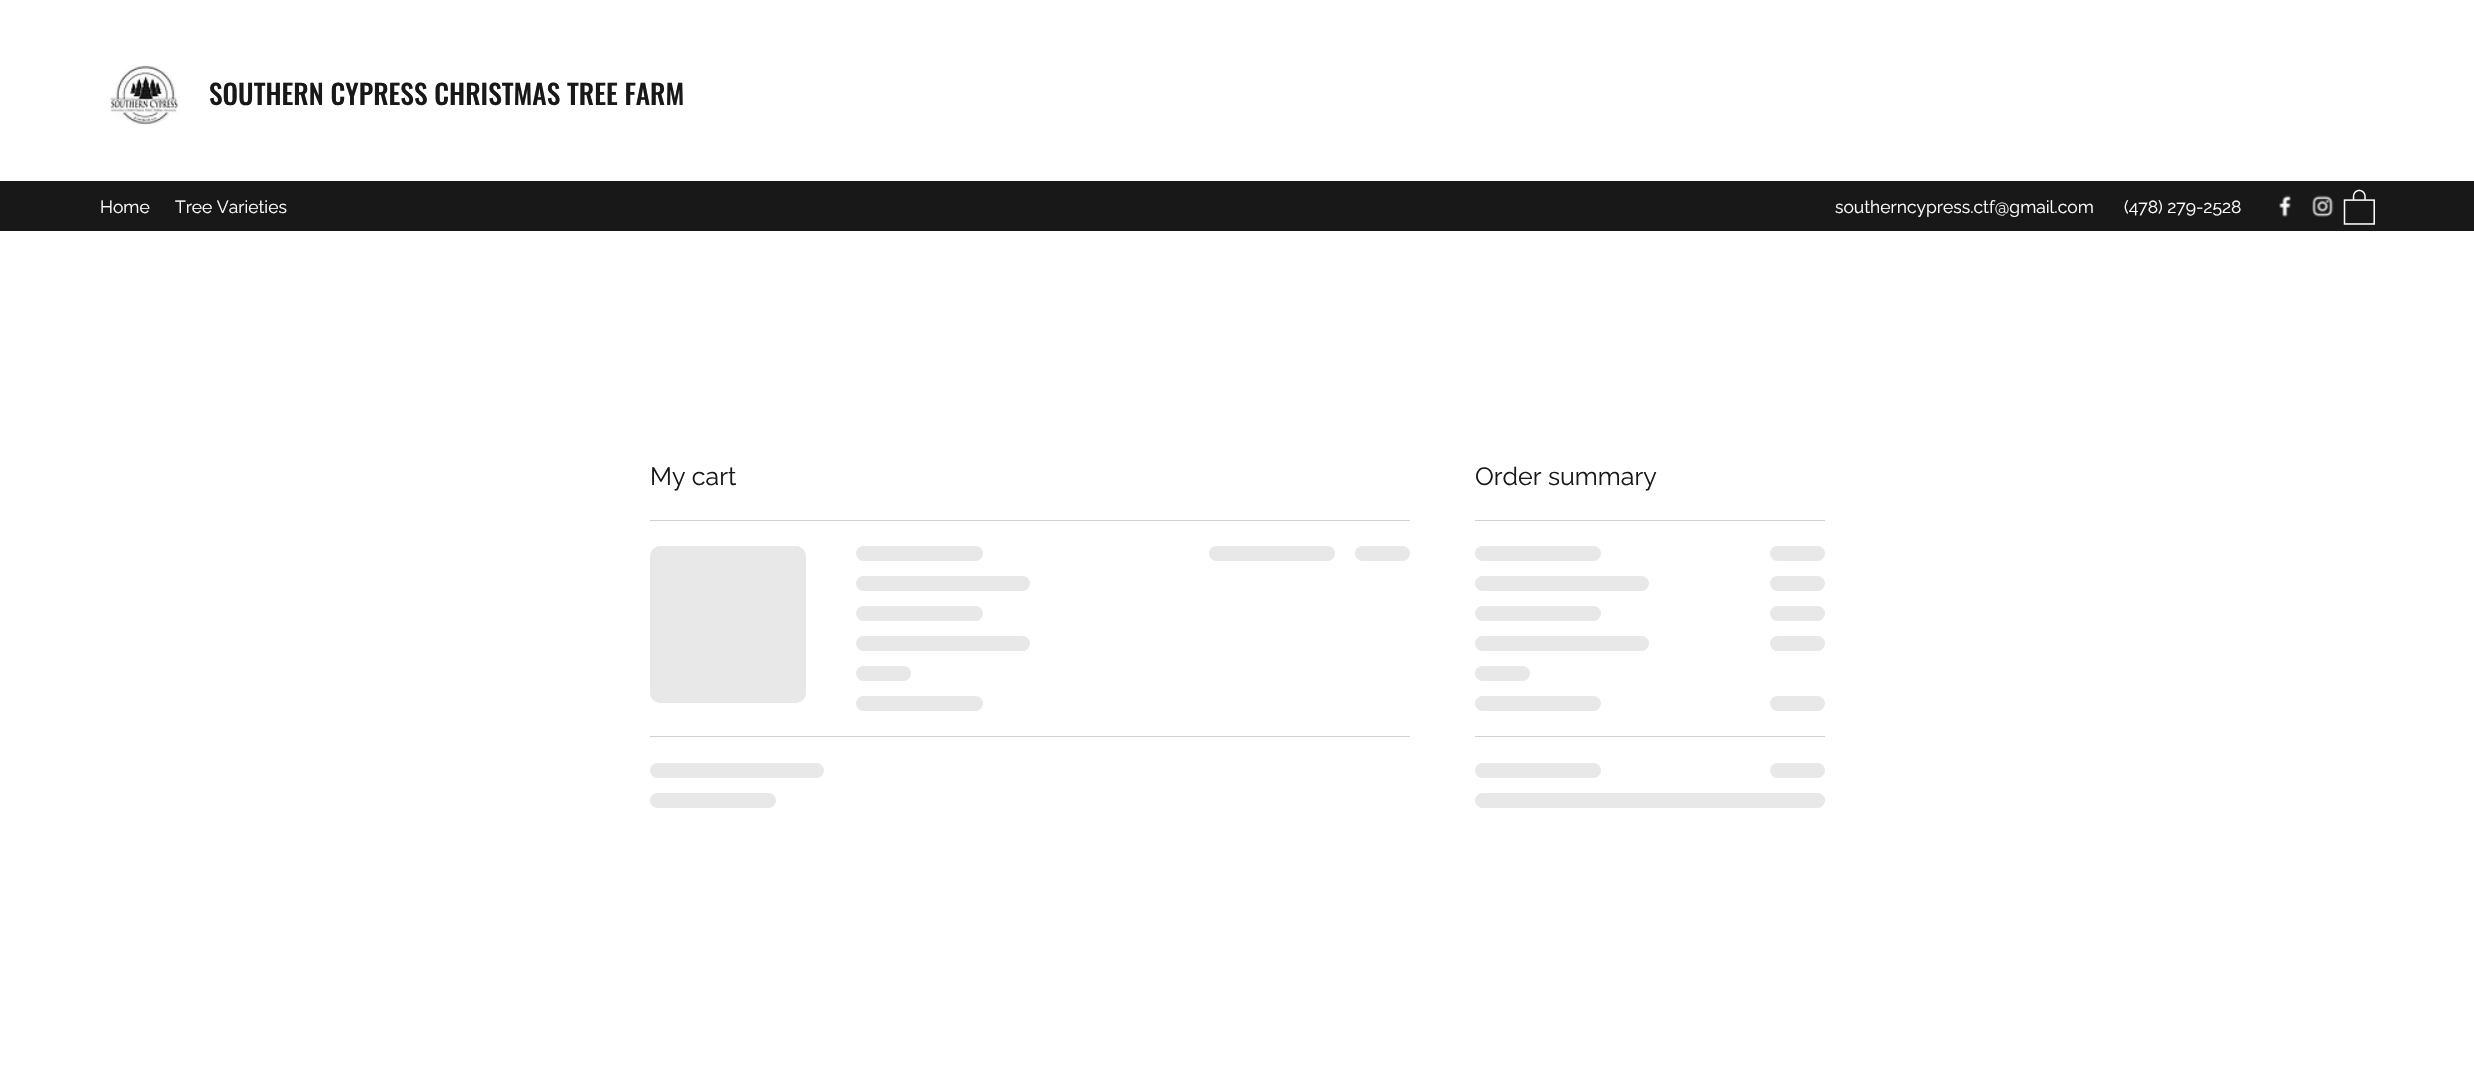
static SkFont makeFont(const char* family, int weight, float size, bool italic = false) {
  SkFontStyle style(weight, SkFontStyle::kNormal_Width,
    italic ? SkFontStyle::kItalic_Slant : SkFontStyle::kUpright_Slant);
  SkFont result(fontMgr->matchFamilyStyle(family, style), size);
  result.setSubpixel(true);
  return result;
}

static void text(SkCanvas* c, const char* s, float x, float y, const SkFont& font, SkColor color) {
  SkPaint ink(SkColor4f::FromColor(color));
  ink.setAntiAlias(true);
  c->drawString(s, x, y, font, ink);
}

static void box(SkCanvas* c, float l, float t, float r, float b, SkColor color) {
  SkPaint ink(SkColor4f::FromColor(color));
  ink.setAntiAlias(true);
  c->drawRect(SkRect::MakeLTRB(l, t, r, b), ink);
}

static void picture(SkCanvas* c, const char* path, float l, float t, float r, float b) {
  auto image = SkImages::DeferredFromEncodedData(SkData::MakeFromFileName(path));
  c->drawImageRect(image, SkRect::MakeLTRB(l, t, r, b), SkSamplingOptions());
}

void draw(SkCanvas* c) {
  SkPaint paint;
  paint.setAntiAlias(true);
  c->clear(0xffffffff);
  picture(c, "img_01.png", 110, 65, 180, 125);
  SkFont face1 = makeFont("Oswald", 500, 27.5f);
  text(c, "SOUTHERN CYPRESS CHRISTMAS TREE FARM", 209, 105, face1, 0xff181818);
  box(c, 0, 181, 2474, 231, 0xff181818);
  SkFont face2 = makeFont("Raleway", 400, 17.5f);
  text(c, "Home", 100, 213, face2, 0xffffffff);
  text(c, "Tree Varieties", 175, 213, face2, 0xffffffff);
  text(c, "southerncypress.ctf@gmail.com", 1835, 213, face2, 0xffffffff);
  text(c, "(478) 279-2528", 2124, 213, face2, 0xffffffff);
  picture(c, "img_02.png", 2279, 195, 2291, 217);
  picture(c, "img_03.png", 2312, 195, 2334, 217);
  picture(c, "img_04.png", 2343, 189, 2375, 225);
  box(c, 650, 520, 1410, 521, 0xffd1d1d1);
  SkFont face3 = makeFont("Raleway", 400, 25);
  text(c, "My cart", 650, 485, face3, 0xff181818);
  {
    const SkColor colors[] = {0xffe8e8e8, 0xffd1d1d1, 0xffe8e8e8};
    const float stops[] = {0.25f, 0.37f, 0.63f};
    const SkPoint ends[] = {{650, 624}, {1275, 624}};
    paint.setShader(SkGradientShader::MakeLinear(ends, colors, stops, 3, SkTileMode::kClamp));
    paint.setAlpha(255);
  }
  c->drawRoundRect(SkRect::MakeLTRB(650, 546, 806, 703), 10, 10, paint);
  {
    const SkColor colors[] = {0xffe8e8e8, 0xffd1d1d1, 0xffe8e8e8};
    const float stops[] = {0.25f, 0.37f, 0.63f};
    const SkPoint ends[] = {{856, 554}, {1361, 554}};
    paint.setShader(SkGradientShader::MakeLinear(ends, colors, stops, 3, SkTileMode::kClamp));
    paint.setAlpha(255);
  }
  c->drawRoundRect(SkRect::MakeLTRB(856, 546, 983, 561), 7.5f, 7.5f, paint);
  {
    const SkColor colors[] = {0xffe8e8e8, 0xffd1d1d1, 0xffe8e8e8};
    const float stops[] = {0.25f, 0.37f, 0.63f};
    const SkPoint ends[] = {{856, 584}, {1551, 584}};
    paint.setShader(SkGradientShader::MakeLinear(ends, colors, stops, 3, SkTileMode::kClamp));
    paint.setAlpha(255);
  }
  c->drawRoundRect(SkRect::MakeLTRB(856, 576, 1030, 591), 7.5f, 7.5f, paint);
  {
    const SkColor colors[] = {0xffe8e8e8, 0xffd1d1d1, 0xffe8e8e8};
    const float stops[] = {0.25f, 0.37f, 0.63f};
    const SkPoint ends[] = {{856, 614}, {1361, 614}};
    paint.setShader(SkGradientShader::MakeLinear(ends, colors, stops, 3, SkTileMode::kClamp));
    paint.setAlpha(255);
  }
  c->drawRoundRect(SkRect::MakeLTRB(856, 606, 983, 621), 7.5f, 7.5f, paint);
  {
    const SkColor colors[] = {0xffe8e8e8, 0xffd1d1d1, 0xffe8e8e8};
    const float stops[] = {0.25f, 0.37f, 0.63f};
    const SkPoint ends[] = {{856, 644}, {1551, 644}};
    paint.setShader(SkGradientShader::MakeLinear(ends, colors, stops, 3, SkTileMode::kClamp));
    paint.setAlpha(255);
  }
  c->drawRoundRect(SkRect::MakeLTRB(856, 636, 1030, 651), 7.5f, 7.5f, paint);
  {
    const SkColor colors[] = {0xffe8e8e8, 0xffd1d1d1, 0xffe8e8e8};
    const float stops[] = {0.25f, 0.37f, 0.63f};
    const SkPoint ends[] = {{856, 674}, {1076, 674}};
    paint.setShader(SkGradientShader::MakeLinear(ends, colors, stops, 3, SkTileMode::kClamp));
    paint.setAlpha(255);
  }
  c->drawRoundRect(SkRect::MakeLTRB(856, 666, 911, 681), 7.5f, 7.5f, paint);
  {
    const SkColor colors[] = {0xffe8e8e8, 0xffd1d1d1, 0xffe8e8e8};
    const float stops[] = {0.25f, 0.37f, 0.63f};
    const SkPoint ends[] = {{856, 704}, {1361, 704}};
    paint.setShader(SkGradientShader::MakeLinear(ends, colors, stops, 3, SkTileMode::kClamp));
    paint.setAlpha(255);
  }
  c->drawRoundRect(SkRect::MakeLTRB(856, 696, 983, 711), 7.5f, 7.5f, paint);
  {
    const SkColor colors[] = {0xffe8e8e8, 0xffd1d1d1, 0xffe8e8e8};
    const float stops[] = {0.25f, 0.37f, 0.63f};
    const SkPoint ends[] = {{1209, 554}, {1714, 554}};
    paint.setShader(SkGradientShader::MakeLinear(ends, colors, stops, 3, SkTileMode::kClamp));
    paint.setAlpha(255);
  }
  c->drawRoundRect(SkRect::MakeLTRB(1209, 546, 1335, 561), 7.5f, 7.5f, paint);
  {
    const SkColor colors[] = {0xffe8e8e8, 0xffd1d1d1, 0xffe8e8e8};
    const float stops[] = {0.25f, 0.37f, 0.63f};
    const SkPoint ends[] = {{1355, 554}, {1575, 554}};
    paint.setShader(SkGradientShader::MakeLinear(ends, colors, stops, 3, SkTileMode::kClamp));
    paint.setAlpha(255);
  }
  c->drawRoundRect(SkRect::MakeLTRB(1355, 546, 1410, 561), 7.5f, 7.5f, paint);
  box(c, 650, 736, 1410, 737, 0xffd1d1d1);
  {
    const SkColor colors[] = {0xffe8e8e8, 0xffd1d1d1, 0xffe8e8e8};
    const float stops[] = {0.25f, 0.37f, 0.63f};
    const SkPoint ends[] = {{650, 770}, {1345, 770}};
    paint.setShader(SkGradientShader::MakeLinear(ends, colors, stops, 3, SkTileMode::kClamp));
    paint.setAlpha(255);
  }
  c->drawRoundRect(SkRect::MakeLTRB(650, 763, 824, 778), 7.5f, 7.5f, paint);
  {
    const SkColor colors[] = {0xffe8e8e8, 0xffd1d1d1, 0xffe8e8e8};
    const float stops[] = {0.25f, 0.37f, 0.63f};
    const SkPoint ends[] = {{650, 800}, {1155, 800}};
    paint.setShader(SkGradientShader::MakeLinear(ends, colors, stops, 3, SkTileMode::kClamp));
    paint.setAlpha(255);
  }
  c->drawRoundRect(SkRect::MakeLTRB(650, 793, 776, 808), 7.5f, 7.5f, paint);
  box(c, 1475, 520, 1825, 521, 0xffd1d1d1);
  text(c, "Order summary", 1475, 485, face3, 0xff181818);
  {
    const SkColor colors[] = {0xffe8e8e8, 0xffd1d1d1, 0xffe8e8e8};
    const float stops[] = {0.25f, 0.37f, 0.63f};
    const SkPoint ends[] = {{1475, 554}, {1980, 554}};
    paint.setShader(SkGradientShader::MakeLinear(ends, colors, stops, 3, SkTileMode::kClamp));
    paint.setAlpha(255);
  }
  c->drawRoundRect(SkRect::MakeLTRB(1475, 546, 1601, 561), 7.5f, 7.5f, paint);
  {
    const SkColor colors[] = {0xffe8e8e8, 0xffd1d1d1, 0xffe8e8e8};
    const float stops[] = {0.25f, 0.37f, 0.63f};
    const SkPoint ends[] = {{1770, 554}, {1990, 554}};
    paint.setShader(SkGradientShader::MakeLinear(ends, colors, stops, 3, SkTileMode::kClamp));
    paint.setAlpha(255);
  }
  c->drawRoundRect(SkRect::MakeLTRB(1770, 546, 1825, 561), 7.5f, 7.5f, paint);
  {
    const SkColor colors[] = {0xffe8e8e8, 0xffd1d1d1, 0xffe8e8e8};
    const float stops[] = {0.25f, 0.37f, 0.63f};
    const SkPoint ends[] = {{1475, 584}, {2170, 584}};
    paint.setShader(SkGradientShader::MakeLinear(ends, colors, stops, 3, SkTileMode::kClamp));
    paint.setAlpha(255);
  }
  c->drawRoundRect(SkRect::MakeLTRB(1475, 576, 1649, 591), 7.5f, 7.5f, paint);
  {
    const SkColor colors[] = {0xffe8e8e8, 0xffd1d1d1, 0xffe8e8e8};
    const float stops[] = {0.25f, 0.37f, 0.63f};
    const SkPoint ends[] = {{1770, 584}, {1990, 584}};
    paint.setShader(SkGradientShader::MakeLinear(ends, colors, stops, 3, SkTileMode::kClamp));
    paint.setAlpha(255);
  }
  c->drawRoundRect(SkRect::MakeLTRB(1770, 576, 1825, 591), 7.5f, 7.5f, paint);
  {
    const SkColor colors[] = {0xffe8e8e8, 0xffd1d1d1, 0xffe8e8e8};
    const float stops[] = {0.25f, 0.37f, 0.63f};
    const SkPoint ends[] = {{1475, 614}, {1980, 614}};
    paint.setShader(SkGradientShader::MakeLinear(ends, colors, stops, 3, SkTileMode::kClamp));
    paint.setAlpha(255);
  }
  c->drawRoundRect(SkRect::MakeLTRB(1475, 606, 1601, 621), 7.5f, 7.5f, paint);
  {
    const SkColor colors[] = {0xffe8e8e8, 0xffd1d1d1, 0xffe8e8e8};
    const float stops[] = {0.25f, 0.37f, 0.63f};
    const SkPoint ends[] = {{1770, 614}, {1990, 614}};
    paint.setShader(SkGradientShader::MakeLinear(ends, colors, stops, 3, SkTileMode::kClamp));
    paint.setAlpha(255);
  }
  c->drawRoundRect(SkRect::MakeLTRB(1770, 606, 1825, 621), 7.5f, 7.5f, paint);
  {
    const SkColor colors[] = {0xffe8e8e8, 0xffd1d1d1, 0xffe8e8e8};
    const float stops[] = {0.25f, 0.37f, 0.63f};
    const SkPoint ends[] = {{1475, 644}, {2170, 644}};
    paint.setShader(SkGradientShader::MakeLinear(ends, colors, stops, 3, SkTileMode::kClamp));
    paint.setAlpha(255);
  }
  c->drawRoundRect(SkRect::MakeLTRB(1475, 636, 1649, 651), 7.5f, 7.5f, paint);
  {
    const SkColor colors[] = {0xffe8e8e8, 0xffd1d1d1, 0xffe8e8e8};
    const float stops[] = {0.25f, 0.37f, 0.63f};
    const SkPoint ends[] = {{1770, 644}, {1990, 644}};
    paint.setShader(SkGradientShader::MakeLinear(ends, colors, stops, 3, SkTileMode::kClamp));
    paint.setAlpha(255);
  }
  c->drawRoundRect(SkRect::MakeLTRB(1770, 636, 1825, 651), 7.5f, 7.5f, paint);
  {
    const SkColor colors[] = {0xffe8e8e8, 0xffd1d1d1, 0xffe8e8e8};
    const float stops[] = {0.25f, 0.37f, 0.63f};
    const SkPoint ends[] = {{1475, 674}, {1695, 674}};
    paint.setShader(SkGradientShader::MakeLinear(ends, colors, stops, 3, SkTileMode::kClamp));
    paint.setAlpha(255);
  }
  c->drawRoundRect(SkRect::MakeLTRB(1475, 666, 1530, 681), 7.5f, 7.5f, paint);
  {
    const SkColor colors[] = {0xffe8e8e8, 0xffd1d1d1, 0xffe8e8e8};
    const float stops[] = {0.25f, 0.37f, 0.63f};
    const SkPoint ends[] = {{1475, 704}, {1980, 704}};
    paint.setShader(SkGradientShader::MakeLinear(ends, colors, stops, 3, SkTileMode::kClamp));
    paint.setAlpha(255);
  }
  c->drawRoundRect(SkRect::MakeLTRB(1475, 696, 1601, 711), 7.5f, 7.5f, paint);
  {
    const SkColor colors[] = {0xffe8e8e8, 0xffd1d1d1, 0xffe8e8e8};
    const float stops[] = {0.25f, 0.37f, 0.63f};
    const SkPoint ends[] = {{1770, 704}, {1990, 704}};
    paint.setShader(SkGradientShader::MakeLinear(ends, colors, stops, 3, SkTileMode::kClamp));
    paint.setAlpha(255);
  }
  c->drawRoundRect(SkRect::MakeLTRB(1770, 696, 1825, 711), 7.5f, 7.5f, paint);
  box(c, 1475, 736, 1825, 737, 0xffd1d1d1);
  {
    const SkColor colors[] = {0xffe8e8e8, 0xffd1d1d1, 0xffe8e8e8};
    const float stops[] = {0.25f, 0.37f, 0.63f};
    const SkPoint ends[] = {{1475, 770}, {1980, 770}};
    paint.setShader(SkGradientShader::MakeLinear(ends, colors, stops, 3, SkTileMode::kClamp));
    paint.setAlpha(255);
  }
  c->drawRoundRect(SkRect::MakeLTRB(1475, 763, 1601, 778), 7.5f, 7.5f, paint);
  {
    const SkColor colors[] = {0xffe8e8e8, 0xffd1d1d1, 0xffe8e8e8};
    const float stops[] = {0.25f, 0.37f, 0.63f};
    const SkPoint ends[] = {{1770, 770}, {1990, 770}};
    paint.setShader(SkGradientShader::MakeLinear(ends, colors, stops, 3, SkTileMode::kClamp));
    paint.setAlpha(255);
  }
  c->drawRoundRect(SkRect::MakeLTRB(1770, 763, 1825, 778), 7.5f, 7.5f, paint);
  {
    const SkColor colors[] = {0xffe8e8e8, 0xffd1d1d1, 0xffe8e8e8};
    const float stops[] = {0.25f, 0.37f, 0.63f};
    const SkPoint ends[] = {{1475, 800}, {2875, 800}};
    paint.setShader(SkGradientShader::MakeLinear(ends, colors, stops, 3, SkTileMode::kClamp));
    paint.setAlpha(255);
  }
  c->drawRoundRect(SkRect::MakeLTRB(1475, 793, 1825, 808), 7.5f, 7.5f, paint);
}
